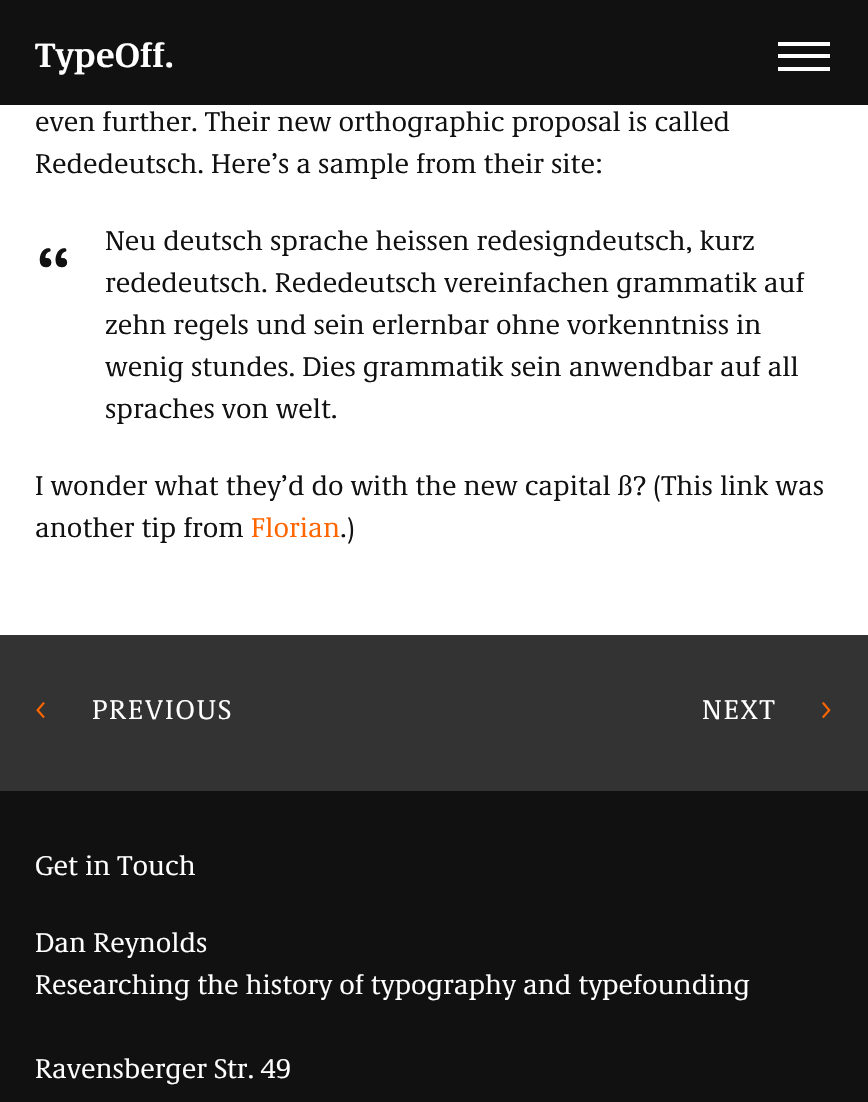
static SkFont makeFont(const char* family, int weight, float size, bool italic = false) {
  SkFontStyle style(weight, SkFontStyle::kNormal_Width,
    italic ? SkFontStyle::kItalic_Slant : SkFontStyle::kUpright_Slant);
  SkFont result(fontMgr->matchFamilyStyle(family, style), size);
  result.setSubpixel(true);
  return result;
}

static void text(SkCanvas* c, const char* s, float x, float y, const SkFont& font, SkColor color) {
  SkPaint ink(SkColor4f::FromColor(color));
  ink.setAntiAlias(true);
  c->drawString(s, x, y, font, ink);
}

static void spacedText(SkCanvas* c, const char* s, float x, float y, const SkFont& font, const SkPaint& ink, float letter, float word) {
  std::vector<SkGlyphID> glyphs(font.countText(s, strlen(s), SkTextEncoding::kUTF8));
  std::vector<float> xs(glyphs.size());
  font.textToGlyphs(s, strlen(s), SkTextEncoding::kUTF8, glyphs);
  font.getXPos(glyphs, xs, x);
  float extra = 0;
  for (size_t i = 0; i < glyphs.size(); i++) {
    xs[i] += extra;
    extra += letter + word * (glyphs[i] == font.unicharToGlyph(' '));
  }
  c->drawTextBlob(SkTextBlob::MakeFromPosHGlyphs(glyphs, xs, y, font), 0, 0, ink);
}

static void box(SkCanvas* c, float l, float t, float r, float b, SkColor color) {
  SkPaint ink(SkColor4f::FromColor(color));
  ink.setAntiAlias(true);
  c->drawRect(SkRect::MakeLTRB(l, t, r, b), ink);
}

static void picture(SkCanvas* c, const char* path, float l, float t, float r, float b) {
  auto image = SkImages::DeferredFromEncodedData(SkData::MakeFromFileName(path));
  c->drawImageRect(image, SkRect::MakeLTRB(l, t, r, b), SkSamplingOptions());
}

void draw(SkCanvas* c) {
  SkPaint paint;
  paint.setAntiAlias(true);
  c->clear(0xffffffff);
  box(c, 0, 0, 868, 105, 0xff111111);
  SkFont face1 = makeFont("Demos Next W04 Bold", 700, 35);
  text(c, "TypeOff.", 35, 67, face1, 0xffffffff);
  paint.setColor(0xffffffff);
  c->drawPath(SkPathBuilder().moveTo(778, 42).lineTo(830, 42).lineTo(830, 46).lineTo(778, 46).close().moveTo(778, 54).lineTo(830, 54).lineTo(830, 58).lineTo(778, 58).close().moveTo(778, 67).lineTo(830, 67).lineTo(830, 71).lineTo(778, 71).close().detach(), paint);
  SkFont face2 = makeFont("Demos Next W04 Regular", 400, 28);
  text(c, "even further. Their new orthographic proposal is called", 35, 131, face2, 0xff111111);
  text(c, "Rededeutsch. Here’s a sample from their site:", 35, 173, face2, 0xff111111);
  SkFont face3 = makeFont("Demos Next W04 Regular", 400, 84);
  text(c, "“", 35, 308, face3, 0xff111111);
  text(c, "Neu deutsch sprache heissen redesigndeutsch, kurz", 105, 250, face2, 0xff111111);
  text(c, "rededeutsch. Rededeutsch vereinfachen grammatik auf", 105, 292, face2, 0xff111111);
  text(c, "zehn regels und sein erlernbar ohne vorkenntniss in", 105, 334, face2, 0xff111111);
  text(c, "wenig stundes. Dies grammatik sein anwendbar auf all", 105, 376, face2, 0xff111111);
  text(c, "spraches von welt.", 105, 418, face2, 0xff111111);
  text(c, "I wonder what they’d do with the new capital ß? (This link was", 35, 495, face2, 0xff111111);
  text(c, "another tip from", 35, 537, face2, 0xff111111);
  text(c, "Florian", 251, 537, face2, 0xffff6600);
  text(c, ".)", 340, 537, face2, 0xff111111);
  box(c, 0, 635, 868, 791, 0xff333333);
  picture(c, "img_01.png", 36, 702, 45, 719);
  spacedText(c, "PREVIOUS", 92, 719, face2, paint, 2, 0);
  spacedText(c, "NEXT", 702, 719, face2, paint, 2, 0);
  picture(c, "img_02.png", 822, 702, 831, 719);
  box(c, 0, 791, 868, 1102, 0xff111111);
  text(c, "Get in Touch", 35, 875, face2, 0xffffffff);
  text(c, "Dan Reynolds", 35, 952, face2, 0xffffffff);
  text(c, "Researching the history of typography and typefounding", 35, 994, face2, 0xffffffff);
  text(c, "Ravensberger Str. 49", 35, 1078, face2, 0xffffffff);
}
